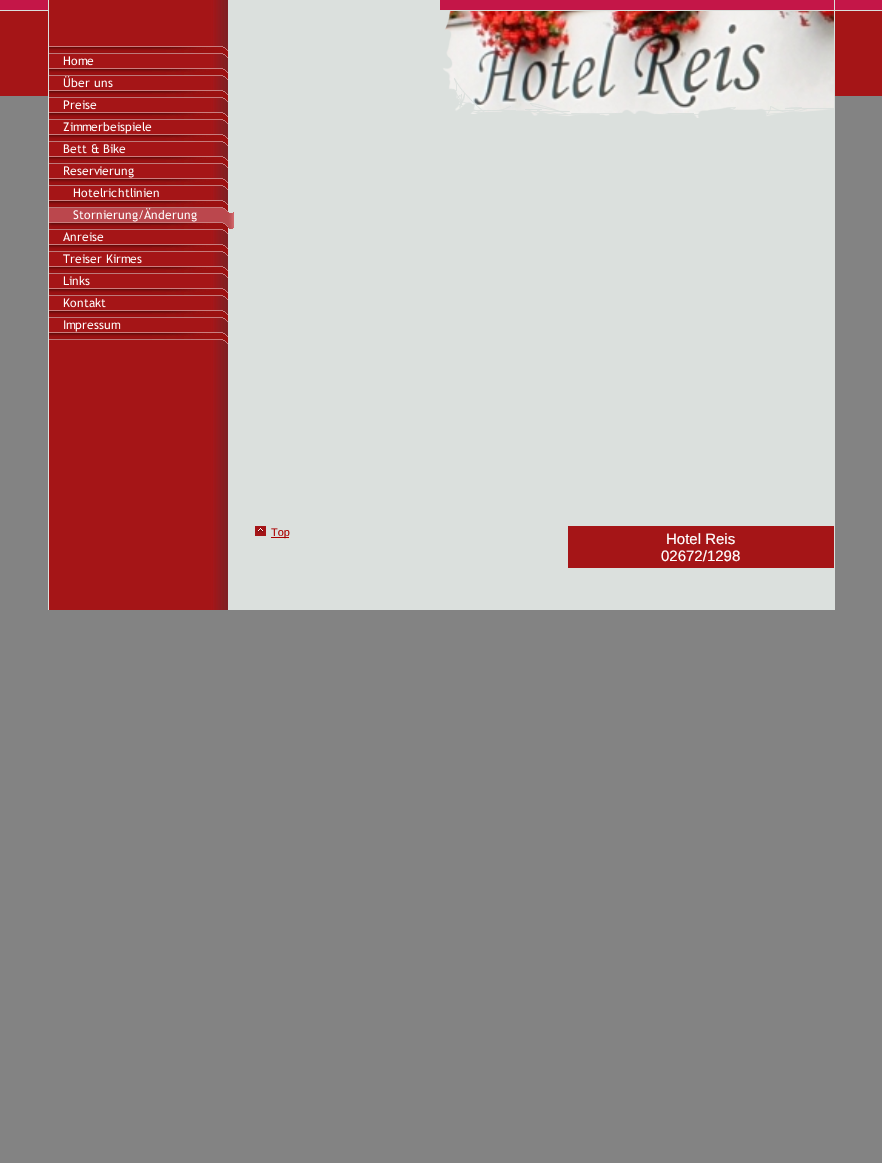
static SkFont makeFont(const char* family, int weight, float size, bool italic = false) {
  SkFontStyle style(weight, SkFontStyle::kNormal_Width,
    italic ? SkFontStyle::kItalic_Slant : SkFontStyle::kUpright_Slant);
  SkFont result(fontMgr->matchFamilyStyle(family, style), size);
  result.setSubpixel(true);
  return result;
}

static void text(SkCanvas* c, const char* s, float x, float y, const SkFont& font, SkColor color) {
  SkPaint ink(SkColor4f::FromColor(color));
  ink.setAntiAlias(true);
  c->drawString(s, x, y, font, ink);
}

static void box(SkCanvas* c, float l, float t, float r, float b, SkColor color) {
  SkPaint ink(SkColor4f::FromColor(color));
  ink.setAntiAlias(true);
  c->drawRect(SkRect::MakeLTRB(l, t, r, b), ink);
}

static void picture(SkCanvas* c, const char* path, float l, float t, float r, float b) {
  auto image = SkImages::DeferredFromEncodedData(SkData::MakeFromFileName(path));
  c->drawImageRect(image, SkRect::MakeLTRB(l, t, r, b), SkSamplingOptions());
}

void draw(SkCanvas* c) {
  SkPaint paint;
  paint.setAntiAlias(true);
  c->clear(0xff838383);
  picture(c, "img_01.png", 0, 0, 882, 96);
  box(c, 48, 0, 835, 610, 0xffdbe0dd);
  picture(c, "img_02.png", 49, 0, 228, 526);
  picture(c, "img_03.png", 49, 46, 228, 53);
  picture(c, "img_04.png", 49, 53, 228, 75);
  picture(c, "img_05.png", 49, 75, 228, 97);
  picture(c, "img_06.png", 49, 97, 228, 119);
  picture(c, "img_07.png", 49, 119, 228, 141);
  picture(c, "img_08.png", 49, 141, 228, 163);
  picture(c, "img_09.png", 49, 163, 228, 185);
  picture(c, "img_10.png", 49, 185, 228, 207);
  picture(c, "img_11.png", 49, 207, 234, 229);
  picture(c, "img_12.png", 49, 229, 228, 251);
  picture(c, "img_13.png", 49, 251, 228, 273);
  picture(c, "img_14.png", 49, 273, 228, 295);
  picture(c, "img_15.png", 49, 295, 228, 317);
  picture(c, "img_16.png", 49, 317, 228, 339);
  picture(c, "img_17.png", 49, 339, 228, 344);
  picture(c, "img_18.png", 440, 0, 834, 11);
  picture(c, "img_19.png", 440, 11, 834, 118);
  picture(c, "img_20.png", 49, 526, 228, 610);
  picture(c, "img_21.png", 255, 526, 266, 536);
  box(c, 271, 537, 289, 538, 0xffaa0000);
  SkFont face1 = makeFont("Liberation Sans", 400, 11);
  text(c, "Top", 271, 536, face1, 0xffaa0000);
  box(c, 568, 526, 834, 568, 0xffa51517);
  SkFont face2 = makeFont("Liberation Sans", 400, 15);
  text(c, "Hotel Reis", 666, 544, face2, 0xffffffff);
  text(c, "02672/1298", 661, 561, face2, 0xffffffff);
}
